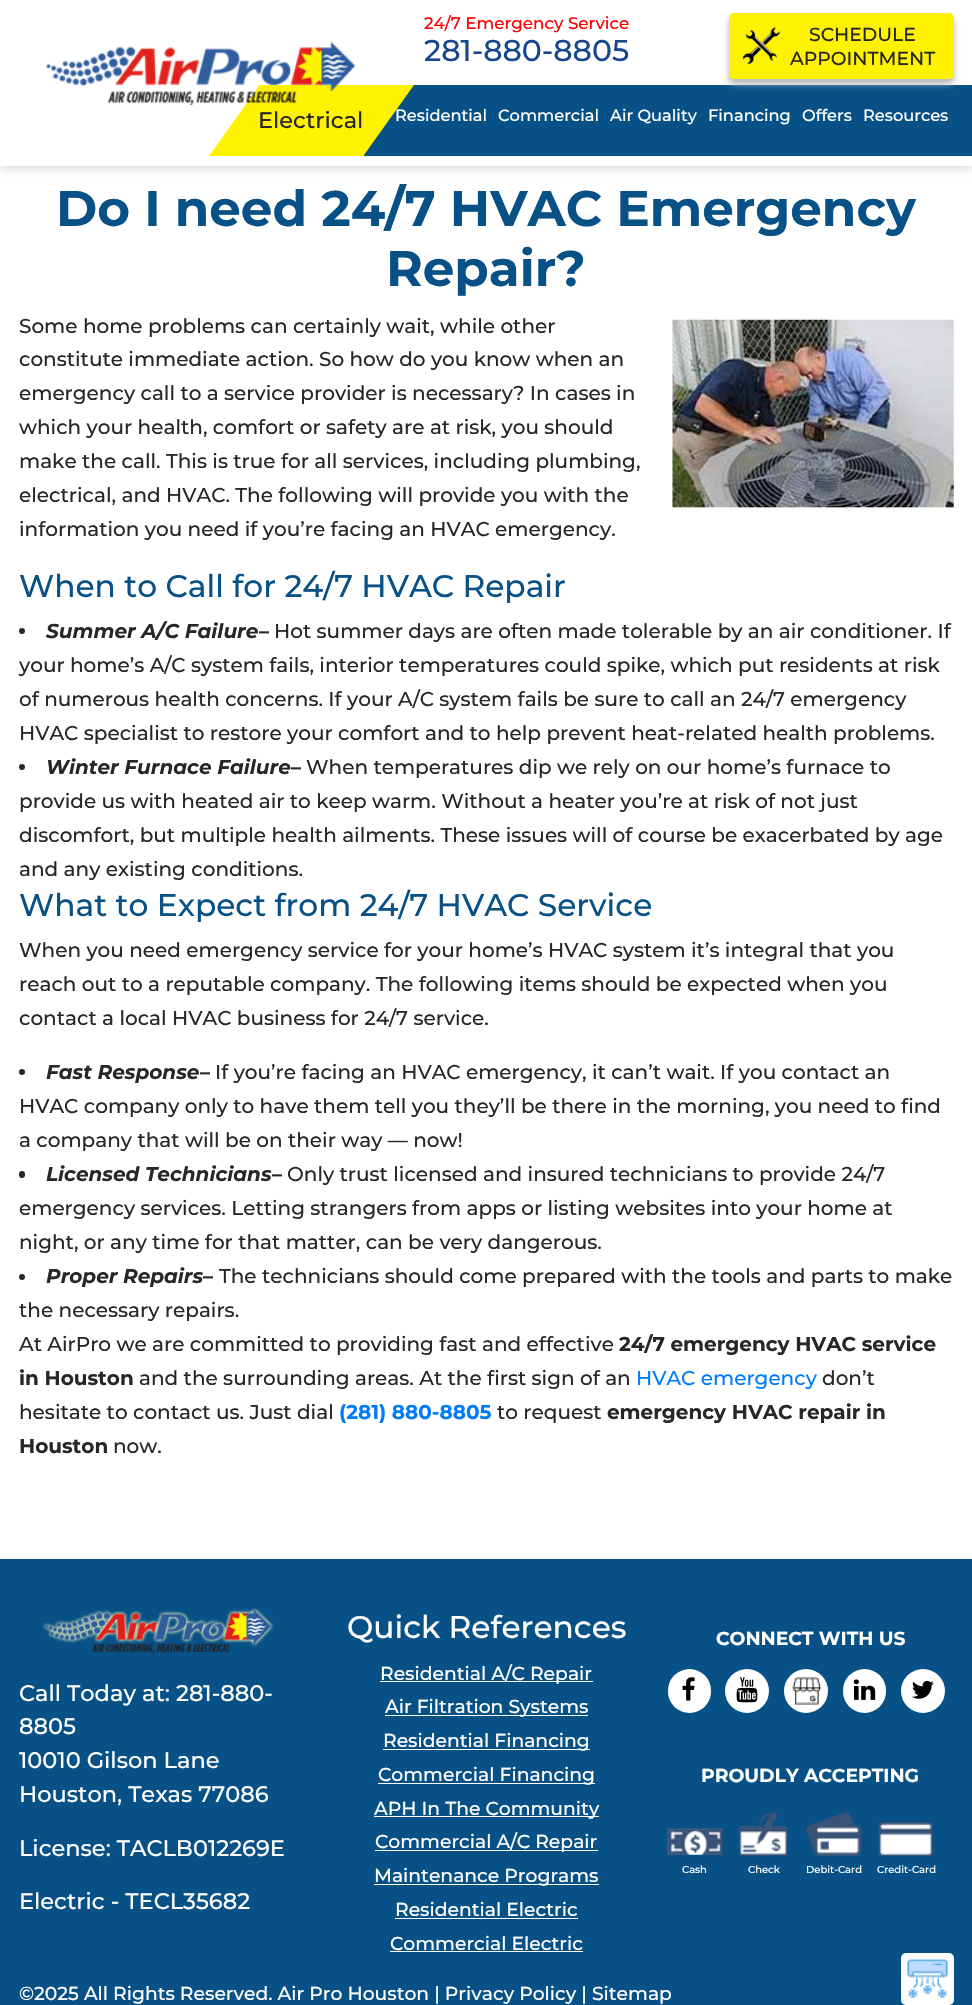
static SkFont makeFont(const char* family, int weight, float size, bool italic = false) {
  SkFontStyle style(weight, SkFontStyle::kNormal_Width,
    italic ? SkFontStyle::kItalic_Slant : SkFontStyle::kUpright_Slant);
  SkFont result(fontMgr->matchFamilyStyle(family, style), size);
  result.setSubpixel(true);
  return result;
}

static void text(SkCanvas* c, const char* s, float x, float y, const SkFont& font, SkColor color) {
  SkPaint ink(SkColor4f::FromColor(color));
  ink.setAntiAlias(true);
  c->drawString(s, x, y, font, ink);
}

static void box(SkCanvas* c, float l, float t, float r, float b, SkColor color) {
  SkPaint ink(SkColor4f::FromColor(color));
  ink.setAntiAlias(true);
  c->drawRect(SkRect::MakeLTRB(l, t, r, b), ink);
}

static void roundBox(SkCanvas* c, float l, float t, float r, float b, float radius, SkColor color) {
  SkPaint ink(SkColor4f::FromColor(color));
  ink.setAntiAlias(true);
  c->drawRoundRect(SkRect::MakeLTRB(l, t, r, b), radius, radius, ink);
}

static void picture(SkCanvas* c, const char* path, float l, float t, float r, float b) {
  auto image = SkImages::DeferredFromEncodedData(SkData::MakeFromFileName(path));
  c->drawImageRect(image, SkRect::MakeLTRB(l, t, r, b), SkSamplingOptions());
}

void draw(SkCanvas* c) {
  SkPaint paint;
  paint.setAntiAlias(true);
  c->clear(0xffffffff);
  paint.setColor(0xffc6c6c6);
  paint.setMaskFilter(SkMaskFilter::MakeBlur(kNormal_SkBlurStyle, 6));
  c->drawRect(SkRect::MakeLTRB(0, 0, 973, 166), paint);
  paint.setMaskFilter(nullptr);
  box(c, 0, 0, 972, 166, 0xffffffff);
  SkFont face1 = makeFont("Montserrat", 500, 16.75f);
  text(c, "24/7 Emergency Service", 424, 29, face1, 0xffff0000);
  SkFont face2 = makeFont("Montserrat", 500, 30);
  text(c, "281-880-8805", 424, 61, face2, 0xff16478e);
  paint.setColor(0xff085186);
  c->drawPath(SkPathBuilder().moveTo(271, 85).lineTo(220, 156).lineTo(954, 156).lineTo(954, 85).close().detach(), paint);
  c->drawPath(SkPathBuilder().moveTo(520, 85).lineTo(972, 85).lineTo(972, 156).lineTo(486, 156).close().detach(), paint);
  paint.setColor(0xffb6b6b6);
  paint.setMaskFilter(SkMaskFilter::MakeBlur(kNormal_SkBlurStyle, 3));
  c->drawRoundRect(SkRect::MakeLTRB(729, 18, 954, 84), 5, 5, paint);
  paint.setMaskFilter(nullptr);
  roundBox(c, 729, 13, 954, 79, 5, 0xfffff200);
  picture(c, "img_01.png", 742, 27, 780, 64);
  paint.setStyle(SkPaint::kStroke_Style);
  paint.setStrokeWidth(1);
  paint.setColor(0xfffff200);
  c->drawRoundRect(SkRect::MakeLTRB(729.5f, 13.5f, 953.5f, 78.5f), 4.5f, 4.5f, paint);
  SkFont face3 = makeFont("Montserrat", 500, 18.75f);
  text(c, "SCHEDULE", 809, 41, face3, 0xff272727);
  text(c, "APPOINTMENT", 790, 65, face3, 0xff272727);
  box(c, 259, 85, 364, 156, 0xfffff200);
  paint.setStyle(SkPaint::kFill_Style);
  c->drawPath(SkPathBuilder().moveTo(259, 156).lineTo(209, 156).lineTo(259, 86).close().detach(), paint);
  picture(c, "img_02.png", 46, 41, 356, 105);
  SkFont face4 = makeFont("Montserrat", 500, 22.5f);
  text(c, "Electrical", 258, 128, face4, 0xff272727);
  c->drawPath(SkPathBuilder().moveTo(364, 85).lineTo(414, 85).lineTo(364, 155).close().detach(), paint);
  SkFont face5 = makeFont("Montserrat", 500, 16.25f);
  text(c, "Residential", 395, 121, face5, 0xffffffff);
  text(c, "Commercial", 498, 121, face5, 0xffffffff);
  text(c, "Air Quality", 610, 121, face5, 0xffffffff);
  text(c, "Financing", 708, 121, face5, 0xffffffff);
  text(c, "Offers", 802, 121, face5, 0xffffffff);
  text(c, "Resources", 863, 121, face5, 0xffffffff);
  SkFont face6 = makeFont("Montserrat", 700, 50);
  text(c, "Do I need 24/7 HVAC Emergency", 56, 226, face6, 0xff085186);
  text(c, "Repair?", 386, 286, face6, 0xff085186);
  SkFont face7 = makeFont("Montserrat", 500, 20);
  text(c, "Some home problems can certainly wait, while other", 19, 333, face7, 0xff272727);
  picture(c, "img_03.png", 672, 318, 954, 510);
  text(c, "constitute immediate action. So how do you know when an", 19, 366, face7, 0xff272727);
  text(c, "emergency call to a service provider is necessary? In cases in", 19, 400, face7, 0xff272727);
  text(c, "which your health, comfort or safety are at risk, you should", 19, 434, face7, 0xff272727);
  text(c, "make the call. This is true for all services, including plumbing,", 19, 468, face7, 0xff272727);
  text(c, "electrical, and HVAC. The following will provide you with the", 19, 502, face7, 0xff272727);
  text(c, "information you need if you’re facing an HVAC emergency.", 19, 536, face7, 0xff272727);
  SkFont face8 = makeFont("Montserrat", 500, 31.25f);
  text(c, "When to Call for 24/7 HVAC Repair", 19, 597, face8, 0xff085186);
  paint.setColor(0xff272727);
  c->drawCircle(22, 631, 3, paint);
  SkFont face9 = makeFont("Montserrat", 700, 20, true);
  text(c, "Summer A/C Failure", 46, 638, face9, 0xff272727);
  SkFont face10 = makeFont("Montserrat", 700, 20);
  text(c, "–", 259, 638, face10, 0xff272727);
  text(c, "Hot summer days are often made tolerable by an air conditioner. If", 274, 638, face7, 0xff272727);
  text(c, "your home’s A/C system fails, interior temperatures could spike, which put residents at risk", 19, 672, face7, 0xff272727);
  text(c, "of numerous health concerns. If your A/C system fails be sure to call an 24/7 emergency", 19, 706, face7, 0xff272727);
  text(c, "HVAC specialist to restore your comfort and to help prevent heat-related health problems.", 19, 740, face7, 0xff272727);
  c->drawCircle(22, 767, 3, paint);
  text(c, "Winter Furnace Failure", 46, 774, face9, 0xff272727);
  text(c, "–", 291, 774, face10, 0xff272727);
  text(c, "When temperatures dip we rely on our home’s furnace to", 306, 774, face7, 0xff272727);
  text(c, "provide us with heated air to keep warm. Without a heater you’re at risk of not just", 19, 808, face7, 0xff272727);
  text(c, "discomfort, but multiple health ailments. These issues will of course be exacerbated by age", 19, 842, face7, 0xff272727);
  text(c, "and any existing conditions.", 19, 876, face7, 0xff272727);
  text(c, "What to Expect from 24/7 HVAC Service", 19, 916, face8, 0xff085186);
  text(c, "When you need emergency service for your home’s HVAC system it’s integral that you", 19, 957, face7, 0xff272727);
  text(c, "reach out to a reputable company. The following items should be expected when you", 19, 991, face7, 0xff272727);
  text(c, "contact a local HVAC business for 24/7 service.", 19, 1025, face7, 0xff272727);
  c->drawCircle(22, 1072, 3, paint);
  text(c, "Fast Response", 46, 1079, face9, 0xff272727);
  text(c, "–", 200, 1079, face10, 0xff272727);
  text(c, "If you’re facing an HVAC emergency, it can’t wait. If you contact an", 215, 1079, face7, 0xff272727);
  text(c, "HVAC company only to have them tell you they’ll be there in the morning, you need to find", 19, 1113, face7, 0xff272727);
  text(c, "a company that will be on their way — now!", 19, 1147, face7, 0xff272727);
  roundBox(c, 19, 1171, 25, 1178, 3, 0xff272727);
  text(c, "Licensed Technicians", 46, 1181, face9, 0xff272727);
  text(c, "–", 272, 1181, face10, 0xff272727);
  text(c, "Only trust licensed and insured technicians to provide 24/7", 287, 1181, face7, 0xff272727);
  text(c, "emergency services. Letting strangers from apps or listing websites into your home at", 19, 1215, face7, 0xff272727);
  text(c, "night, or any time for that matter, can be very dangerous.", 19, 1249, face7, 0xff272727);
  c->drawCircle(22, 1277, 3, paint);
  text(c, "Proper Repairs", 46, 1283, face9, 0xff272727);
  text(c, "–", 203, 1283, face10, 0xff272727);
  text(c, "The technicians should come prepared with the tools and parts to make", 219, 1283, face7, 0xff272727);
  text(c, "the necessary repairs.", 19, 1317, face7, 0xff272727);
  text(c, "At AirPro we are committed to providing fast and effective", 19, 1351, face7, 0xff272727);
  text(c, "24/7 emergency HVAC service", 619, 1351, face10, 0xff272727);
  text(c, "in Houston", 19, 1385, face10, 0xff272727);
  text(c, "and the surrounding areas. At the first sign of an", 139, 1385, face7, 0xff272727);
  text(c, "HVAC emergency", 636, 1385, face7, 0xff007bff);
  text(c, "don’t", 822, 1385, face7, 0xff272727);
  text(c, "hesitate to contact us. Just dial", 19, 1419, face7, 0xff272727);
  text(c, "(281) 880-8805", 339, 1419, face10, 0xff007bff);
  text(c, "to request", 497, 1419, face7, 0xff272727);
  text(c, "emergency HVAC repair in", 607, 1419, face10, 0xff272727);
  text(c, "Houston", 19, 1453, face10, 0xff272727);
  text(c, "now.", 113, 1453, face7, 0xff272727);
  box(c, 0, 1559, 972, 2005, 0xff085186);
  picture(c, "img_04.png", 42, 1608, 274, 1654);
  text(c, "Call Today at: 281-880-", 19, 1701, face4, 0xffffffff);
  text(c, "8805", 19, 1734, face4, 0xffffffff);
  text(c, "10010 Gilson Lane", 19, 1768, face4, 0xffffffff);
  text(c, "Houston, Texas 77086", 19, 1802, face4, 0xffffffff);
  text(c, "License: TACLB012269E", 19, 1856, face4, 0xffffffff);
  text(c, "Electric - TECL35682", 19, 1909, face4, 0xffffffff);
  text(c, "Quick References", 347, 1638, face8, 0xffffffff);
  box(c, 380, 1681, 593, 1682, 0xffffffff);
  text(c, "Residential A/C Repair", 380, 1680, face3, 0xffffffff);
  box(c, 385, 1715, 588, 1716, 0xffffffff);
  text(c, "Air Filtration Systems", 385, 1713, face3, 0xffffffff);
  box(c, 383, 1749, 590, 1750, 0xffffffff);
  text(c, "Residential Financing", 383, 1747, face3, 0xffffffff);
  box(c, 378, 1783, 595, 1784, 0xffffffff);
  text(c, "Commercial Financing", 378, 1781, face3, 0xffffffff);
  box(c, 374, 1816, 599, 1817, 0xffffffff);
  text(c, "APH In The Community", 374, 1815, face3, 0xffffffff);
  box(c, 375, 1850, 598, 1851, 0xffffffff);
  text(c, "Commercial A/C Repair", 375, 1848, face3, 0xffffffff);
  box(c, 374, 1884, 599, 1885, 0xffffffff);
  text(c, "Maintenance Programs", 374, 1882, face3, 0xffffffff);
  text(c, "Residential Electric", 395, 1916, face3, 0xffffffff);
  box(c, 395, 1918, 578, 1919, 0xffffffff);
  text(c, "Commercial Electric", 390, 1950, face3, 0xffffffff);
  box(c, 390, 1951, 583, 1952, 0xffffffff);
  SkFont face11 = makeFont("Montserrat", 700, 18.75f);
  text(c, "CONNECT WITH US", 716, 1645, face11, 0xffffffff);
  roundBox(c, 668, 1669, 711, 1713, 21.5f, 0xffffffff);
  picture(c, "img_05.png", 682, 1677, 695, 1701);
  paint.setColor(0xffffffff);
  c->drawCircle(747, 1691, 22, paint);
  picture(c, "img_06.png", 736, 1677, 758, 1703);
  c->drawCircle(806, 1691, 22, paint);
  picture(c, "img_07.png", 792, 1677, 822, 1705);
  roundBox(c, 843, 1669, 886, 1713, 21.5f, 0xffffffff);
  picture(c, "img_08.png", 853, 1679, 876, 1700);
  c->drawCircle(923, 1691, 22, paint);
  picture(c, "img_09.png", 912, 1680, 934, 1699);
  text(c, "PROUDLY ACCEPTING", 701, 1782, face11, 0xffffffff);
  picture(c, "img_10.png", 667, 1828, 723, 1855);
  SkFont face12 = makeFont("Montserrat", 500, 10);
  text(c, "Cash", 682, 1873, face12, 0xffffffff);
  picture(c, "img_11.png", 738, 1812, 788, 1856);
  text(c, "Check", 748, 1873, face12, 0xffffffff);
  picture(c, "img_12.png", 806, 1812, 862, 1856);
  text(c, "Debit-Card", 806, 1873, face12, 0xffffffff);
  picture(c, "img_13.png", 878, 1822, 933, 1856);
  text(c, "Credit-Card", 877, 1873, face12, 0xffffffff);
  text(c, "©2025 All Rights Reserved. Air Pro Houston | Privacy Policy | Sitemap", 19, 2000, face3, 0xffffffff);
  roundBox(c, 901, 1953, 954, 2005, 5, 0xffffffff);
  picture(c, "img_14.png", 907, 1958, 948, 1999);
}
